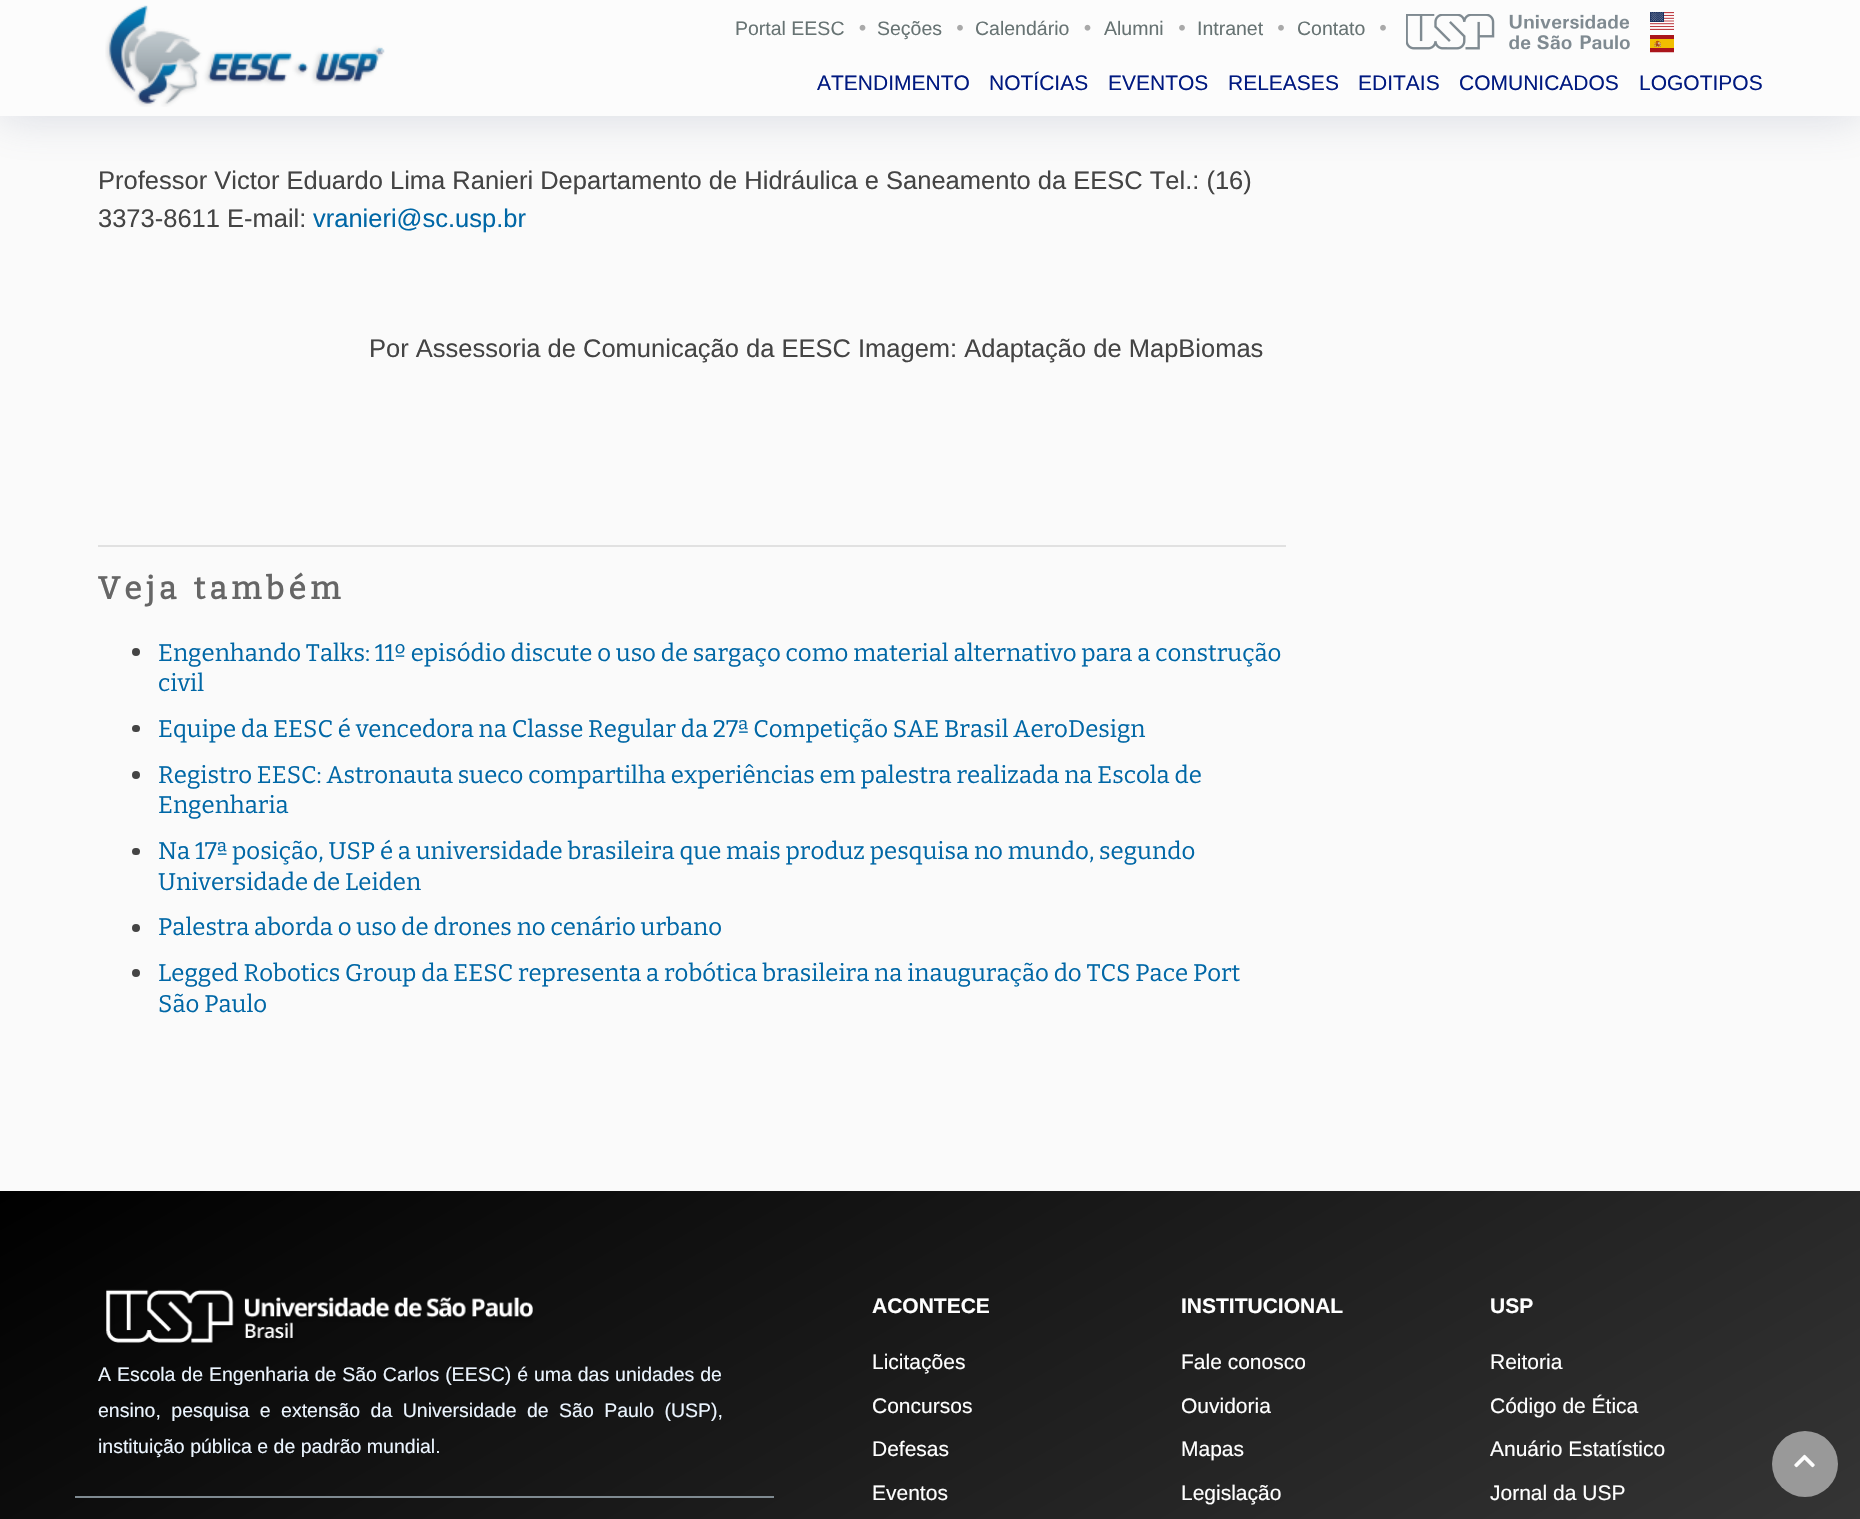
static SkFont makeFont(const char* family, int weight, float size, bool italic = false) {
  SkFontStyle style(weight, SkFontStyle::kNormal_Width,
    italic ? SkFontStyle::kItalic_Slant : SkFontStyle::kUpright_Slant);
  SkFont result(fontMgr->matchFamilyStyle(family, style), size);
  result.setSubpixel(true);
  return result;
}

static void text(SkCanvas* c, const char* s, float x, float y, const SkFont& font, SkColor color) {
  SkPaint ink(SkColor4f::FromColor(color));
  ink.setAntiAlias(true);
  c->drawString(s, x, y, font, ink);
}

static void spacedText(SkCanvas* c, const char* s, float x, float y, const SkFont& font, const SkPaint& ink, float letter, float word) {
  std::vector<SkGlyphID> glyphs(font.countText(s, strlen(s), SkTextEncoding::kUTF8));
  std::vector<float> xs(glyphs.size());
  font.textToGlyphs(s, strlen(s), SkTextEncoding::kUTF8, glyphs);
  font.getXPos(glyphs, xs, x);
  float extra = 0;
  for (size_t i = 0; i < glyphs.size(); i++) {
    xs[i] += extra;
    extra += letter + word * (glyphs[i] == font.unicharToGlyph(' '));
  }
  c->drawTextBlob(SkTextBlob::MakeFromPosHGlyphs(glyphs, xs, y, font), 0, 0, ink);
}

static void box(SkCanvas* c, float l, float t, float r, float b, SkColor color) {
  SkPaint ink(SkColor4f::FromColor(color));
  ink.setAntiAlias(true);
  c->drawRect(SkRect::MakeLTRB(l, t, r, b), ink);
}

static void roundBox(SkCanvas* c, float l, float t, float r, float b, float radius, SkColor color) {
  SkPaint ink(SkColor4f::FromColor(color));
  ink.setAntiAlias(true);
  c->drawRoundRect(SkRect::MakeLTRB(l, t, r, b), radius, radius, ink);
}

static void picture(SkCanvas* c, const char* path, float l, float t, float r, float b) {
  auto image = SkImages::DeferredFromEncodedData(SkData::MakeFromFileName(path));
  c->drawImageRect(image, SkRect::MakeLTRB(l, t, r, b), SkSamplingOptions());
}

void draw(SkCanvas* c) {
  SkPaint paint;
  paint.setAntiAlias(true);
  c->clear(0xfffafafa);
  paint.setColor(0x4d7f89a1);
  paint.setMaskFilter(SkMaskFilter::MakeBlur(kNormal_SkBlurStyle, 22.5f));
  c->drawRect(SkRect::MakeLTRB(0, 0, 1860, 116), paint);
  paint.setMaskFilter(nullptr);
  box(c, 0, 0, 1860, 116, 0xfffcfcfc);
  picture(c, "img_01.png", 105, 5, 385, 107);
  SkFont face1 = makeFont("Liberation Sans", 400, 19.5f);
  text(c, "Portal EESC", 735, 35, face1, 0xff677373);
  picture(c, "img_02.png", 859, 24, 866, 31);
  text(c, "Seções", 877, 35, face1, 0xff677373);
  picture(c, "img_03.png", 957, 24, 963, 31);
  text(c, "Calendário", 975, 35, face1, 0xff677373);
  picture(c, "img_02.png", 1084, 24, 1091, 31);
  text(c, "Alumni", 1104, 35, face1, 0xff677373);
  picture(c, "img_03.png", 1179, 24, 1185, 31);
  text(c, "Intranet", 1197, 35, face1, 0xff677373);
  picture(c, "img_03.png", 1278, 24, 1284, 31);
  text(c, "Contato", 1297, 35, face1, 0xff677373);
  picture(c, "img_03.png", 1380, 24, 1386, 31);
  picture(c, "img_04.png", 1406, 14, 1630, 50);
  picture(c, "img_05.png", 1650, 12, 1674, 30);
  picture(c, "img_06.png", 1650, 35, 1674, 53);
  SkFont face2 = makeFont("Liberation Sans", 400, 21);
  text(c, "ATENDIMENTO", 817, 90, face2, 0xff001980);
  text(c, "NOTÍCIAS", 989, 90, face2, 0xff001980);
  text(c, "EVENTOS", 1108, 90, face2, 0xff001980);
  text(c, "RELEASES", 1228, 90, face2, 0xff001980);
  text(c, "EDITAIS", 1358, 90, face2, 0xff001980);
  text(c, "COMUNICADOS", 1459, 90, face2, 0xff001980);
  text(c, "LOGOTIPOS", 1639, 90, face2, 0xff001980);
  SkFont face3 = makeFont("Liberation Sans", 400, 25.5f);
  text(c, "Professor Victor Eduardo Lima Ranieri Departamento de Hidráulica e Saneamento da EESC Tel.: (16)", 98, 189, face3, 0xff444444);
  text(c, "3373-8611 E-mail:", 98, 227, face3, 0xff444444);
  text(c, "vranieri@sc.usp.br", 313, 227, face3, 0xff0067a6);
  text(c, "Por Assessoria de Comunicação da EESC Imagem: Adaptação de MapBiomas", 369, 357, face3, 0xff444444);
  box(c, 98, 545, 1286, 547, 0xffe1e1e1);
  SkFont face4 = makeFont("Bitter", 700, 31.5f);
  paint.setColor(0xff666666);
  spacedText(c, "Veja também", 98, 599, face4, paint, 4.5f, 2);
  paint.setColor(0xff444444);
  c->drawCircle(136, 652, 4, paint);
  SkFont face5 = makeFont("Bitter", 400, 24);
  text(c, "Engenhando Talks: 11º episódio discute o uso de sargaço como material alternativo para a construção", 158, 661, face5, 0xff0067a6);
  text(c, "civil", 158, 691, face5, 0xff0067a6);
  roundBox(c, 132, 725, 140, 732, 3.5f, 0xff444444);
  text(c, "Equipe da EESC é vencedora na Classe Regular da 27ª Competição SAE Brasil AeroDesign", 158, 737, face5, 0xff0067a6);
  c->drawCircle(136, 775, 4, paint);
  text(c, "Registro EESC: Astronauta sueco compartilha experiências em palestra realizada na Escola de", 158, 783, face5, 0xff0067a6);
  text(c, "Engenharia", 158, 813, face5, 0xff0067a6);
  roundBox(c, 132, 848, 140, 855, 3.5f, 0xff444444);
  text(c, "Na 17ª posição, USP é a universidade brasileira que mais produz pesquisa no mundo, segundo", 158, 859, face5, 0xff0067a6);
  text(c, "Universidade de Leiden", 158, 890, face5, 0xff0067a6);
  c->drawCircle(136, 928, 4, paint);
  text(c, "Palestra aborda o uso de drones no cenário urbano", 158, 935, face5, 0xff0067a6);
  c->drawCircle(136, 973, 4, paint);
  text(c, "Legged Robotics Group da EESC representa a robótica brasileira na inauguração do TCS Pace Port", 158, 981, face5, 0xff0067a6);
  text(c, "São Paulo", 158, 1012, face5, 0xff0067a6);
  {
    const SkColor colors[] = {0xff000000, 0xff484848};
    const float stops[] = {0, 0.95f};
    const SkPoint ends[] = {{494, 906}, {1366, 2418}};
    paint.setShader(SkGradientShader::MakeLinear(ends, colors, stops, 2, SkTileMode::kClamp));
    paint.setAlpha(255);
  }
  c->drawRect(SkRect::MakeLTRB(0, 1191, 1860, 1519), paint);
  picture(c, "img_07.png", 106, 1289, 533, 1343);
  paint.setShader(nullptr);
  paint.setColor(0xffecf5ff);
  spacedText(c, "A Escola de Engenharia de São Carlos (EESC) é uma das unidades de", 98, 1381, face1, paint, 0, 0.5f);
  spacedText(c, "ensino, pesquisa e extensão da Universidade de São Paulo (USP),", 98, 1417, face1, paint, 0, 5);
  text(c, "instituição pública e de padrão mundial.", 98, 1453, face1, 0xffecf5ff);
  box(c, 75, 1496, 774, 1498, 0xff7f8a91);
  SkFont face6 = makeFont("Liberation Sans", 700, 21);
  text(c, "ACONTECE", 872, 1313, face6, 0xffffffff);
  text(c, "Licitações", 872, 1369, face2, 0xffffffff);
  text(c, "Concursos", 872, 1413, face2, 0xffffffff);
  text(c, "Defesas", 872, 1456, face2, 0xffffffff);
  text(c, "Eventos", 872, 1500, face2, 0xffffffff);
  text(c, "INSTITUCIONAL", 1181, 1313, face6, 0xffffffff);
  text(c, "Fale conosco", 1181, 1369, face2, 0xffffffff);
  text(c, "Ouvidoria", 1181, 1413, face2, 0xffffffff);
  text(c, "Mapas", 1181, 1456, face2, 0xffffffff);
  text(c, "Legislação", 1181, 1500, face2, 0xffffffff);
  text(c, "USP", 1490, 1313, face6, 0xffffffff);
  text(c, "Reitoria", 1490, 1369, face2, 0xffffffff);
  text(c, "Código de Ética", 1490, 1413, face2, 0xffffffff);
  text(c, "Anuário Estatístico", 1490, 1456, face2, 0xffffffff);
  text(c, "Jornal da USP", 1490, 1500, face2, 0xffffffff);
  paint.setColor(0xfc9a9a9a);
  c->drawCircle(1805, 1464, 33, paint);
  picture(c, "img_08.png", 1794, 1454, 1815, 1468);
}
